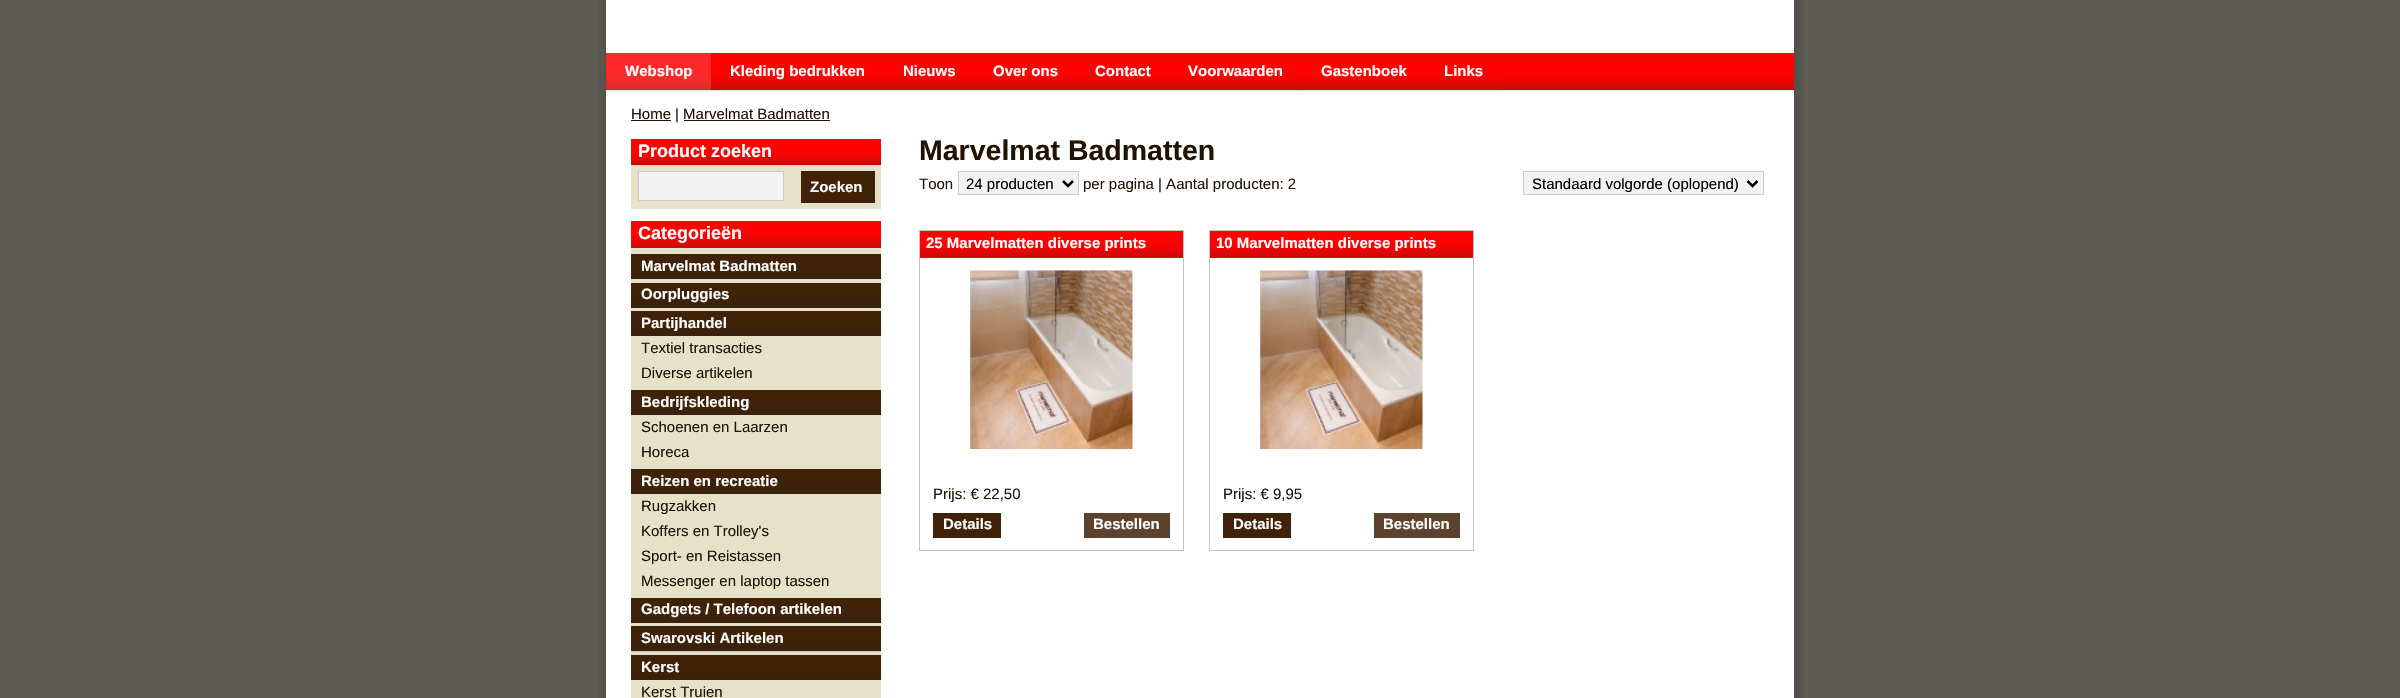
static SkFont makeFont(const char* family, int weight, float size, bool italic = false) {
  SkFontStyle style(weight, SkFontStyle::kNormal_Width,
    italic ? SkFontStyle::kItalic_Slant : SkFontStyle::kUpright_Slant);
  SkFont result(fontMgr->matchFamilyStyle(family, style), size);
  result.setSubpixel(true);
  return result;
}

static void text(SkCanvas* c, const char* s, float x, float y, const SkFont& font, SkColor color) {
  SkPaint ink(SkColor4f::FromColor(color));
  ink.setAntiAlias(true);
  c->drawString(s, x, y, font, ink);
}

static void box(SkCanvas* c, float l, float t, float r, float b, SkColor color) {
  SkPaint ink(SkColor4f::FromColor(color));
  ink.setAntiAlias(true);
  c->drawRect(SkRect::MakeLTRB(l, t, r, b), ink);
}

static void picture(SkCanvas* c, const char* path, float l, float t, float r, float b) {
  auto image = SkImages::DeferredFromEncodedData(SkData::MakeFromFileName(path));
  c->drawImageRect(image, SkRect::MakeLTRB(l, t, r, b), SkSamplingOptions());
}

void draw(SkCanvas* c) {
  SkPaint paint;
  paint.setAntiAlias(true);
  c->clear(0xff5e5d53);
  picture(c, "img_01.png", 599, 0, 1804, 698);
  box(c, 606, 0, 1794, 698, 0xffffffff);
  box(c, 1503, 53, 1794, 90, 0xffff0303);
  picture(c, "img_02.png", 606, 75, 1794, 91);
  box(c, 606, 53, 711, 90, 0xffff0303);
  picture(c, "img_03.png", 606, 53, 712, 91);
  SkFont face1 = makeFont("Liberation Sans", 700, 15);
  text(c, "Webshop", 625, 76, face1, 0xffffffff);
  box(c, 711, 53, 1503, 90, 0xffff0303);
  picture(c, "img_04.png", 711, 75, 884, 91);
  text(c, "Kleding bedrukken", 730, 76, face1, 0xffffffff);
  picture(c, "img_05.png", 883, 75, 974, 91);
  text(c, "Nieuws", 903, 76, face1, 0xffffffff);
  picture(c, "img_06.png", 973, 75, 1076, 91);
  text(c, "Over ons", 993, 76, face1, 0xffffffff);
  picture(c, "img_07.png", 1076, 75, 1170, 91);
  text(c, "Contact", 1095, 76, face1, 0xffffffff);
  picture(c, "img_08.png", 1170, 75, 1303, 91);
  text(c, "Voorwaarden", 1188, 76, face1, 0xffffffff);
  picture(c, "img_09.png", 1302, 75, 1425, 91);
  text(c, "Gastenboek", 1321, 76, face1, 0xffffffff);
  picture(c, "img_10.png", 1425, 75, 1503, 91);
  text(c, "Links", 1444, 76, face1, 0xffffffff);
  SkFont face2 = makeFont("Liberation Sans", 400, 15);
  text(c, "Home", 631, 119, face2, 0xff211204);
  box(c, 631, 120, 671, 121, 0xff211204);
  text(c, "| Marvelmat Badmatten", 675, 119, face2, 0xff211204);
  box(c, 684, 120, 830, 121, 0xff211204);
  box(c, 631, 165, 881, 209, 0xffe6e2ca);
  box(c, 631, 139, 881, 165, 0xffff0303);
  picture(c, "img_11.png", 631, 151, 882, 166);
  SkFont face3 = makeFont("Liberation Sans", 700, 18);
  text(c, "Product zoeken", 638, 157, face3, 0xffffffff);
  paint.setColor(0xfff2f2f2);
  c->drawRect(SkRect::MakeLTRB(638.5f, 171.5f, 783.5f, 200.5f), paint);
  paint.setStyle(SkPaint::kStroke_Style);
  paint.setStrokeWidth(1);
  paint.setColor(0xffcccccc);
  c->drawRect(SkRect::MakeLTRB(638.5f, 171.5f, 783.5f, 200.5f), paint);
  box(c, 801, 171, 875, 203, 0xff402208);
  text(c, "Zoeken", 810, 192, face1, 0xffffffff);
  box(c, 631, 248, 881, 655, 0xffe6e2ca);
  box(c, 631, 221, 881, 248, 0xffff0303);
  picture(c, "img_12.png", 631, 233, 882, 248);
  text(c, "Categorieën", 638, 239, face3, 0xffffffff);
  box(c, 631, 254, 881, 279, 0xff402208);
  picture(c, "img_13.png", 631, 270, 882, 279);
  text(c, "Marvelmat Badmatten", 641, 271, face1, 0xffffffff);
  box(c, 631, 283, 881, 308, 0xff402208);
  picture(c, "img_14.png", 631, 299, 882, 308);
  text(c, "Oorpluggies", 641, 299, face1, 0xffffffff);
  box(c, 631, 311, 881, 336, 0xff402208);
  picture(c, "img_15.png", 631, 328, 882, 337);
  text(c, "Partijhandel", 641, 328, face1, 0xffffffff);
  box(c, 631, 336, 881, 337, 0xffe6e2ca);
  text(c, "Textiel transacties", 641, 353, face2, 0xff211204);
  text(c, "Diverse artikelen", 641, 378, face2, 0xff211204);
  box(c, 631, 390, 881, 415, 0xff402208);
  picture(c, "img_16.png", 631, 407, 882, 415);
  text(c, "Bedrijfskleding", 641, 407, face1, 0xffffffff);
  text(c, "Schoenen en Laarzen", 641, 432, face2, 0xff211204);
  text(c, "Horeca", 641, 457, face2, 0xff211204);
  box(c, 631, 469, 881, 494, 0xff402208);
  picture(c, "img_17.png", 631, 485, 882, 494);
  text(c, "Reizen en recreatie", 641, 486, face1, 0xffffffff);
  text(c, "Rugzakken", 641, 511, face2, 0xff211204);
  text(c, "Koffers en Trolley's", 641, 536, face2, 0xff211204);
  text(c, "Sport- en Reistassen", 641, 561, face2, 0xff211204);
  text(c, "Messenger en laptop tassen", 641, 586, face2, 0xff211204);
  box(c, 631, 598, 881, 623, 0xff402208);
  picture(c, "img_18.png", 631, 614, 882, 623);
  text(c, "Gadgets / Telefoon artikelen", 641, 614, face1, 0xffffffff);
  box(c, 631, 626, 881, 651, 0xff402208);
  picture(c, "img_15.png", 631, 643, 882, 652);
  text(c, "Swarovski Artikelen", 641, 643, face1, 0xffffffff);
  box(c, 631, 655, 881, 680, 0xff402208);
  picture(c, "img_16.png", 631, 672, 882, 680);
  text(c, "Kerst", 641, 672, face1, 0xffffffff);
  box(c, 631, 680, 881, 698, 0xffe6e2ca);
  text(c, "Kerst Truien", 641, 697, face2, 0xff211204);
  SkFont face4 = makeFont("Liberation Sans", 700, 28.5f);
  text(c, "Marvelmat Badmatten", 919, 160, face4, 0xff211204);
  text(c, "Toon", 919, 189, face2, 0xff211204);
  paint.setStyle(SkPaint::kFill_Style);
  paint.setColor(0xfff2f2f2);
  c->drawRect(SkRect::MakeLTRB(958.5f, 171.5f, 1078.5f, 194.5f), paint);
  paint.setStyle(SkPaint::kStroke_Style);
  paint.setColor(0xffcccccc);
  c->drawRect(SkRect::MakeLTRB(958.5f, 171.5f, 1078.5f, 194.5f), paint);
  paint.setStrokeWidth(2.5f);
  paint.setColor(0xff000000);
  c->drawPath(SkPathBuilder().moveTo(1063, 181).lineTo(1068, 186).lineTo(1073, 181).detach(), paint);
  text(c, "24 producten", 966, 189, face2, 0xff000000);
  text(c, "per pagina | Aantal producten: 2", 1083, 189, face2, 0xff211204);
  paint.setStyle(SkPaint::kFill_Style);
  paint.setColor(0xfff2f2f2);
  c->drawRect(SkRect::MakeLTRB(1523.5f, 171.5f, 1763.5f, 194.5f), paint);
  paint.setStyle(SkPaint::kStroke_Style);
  paint.setStrokeWidth(1);
  paint.setColor(0xffcccccc);
  c->drawRect(SkRect::MakeLTRB(1523.5f, 171.5f, 1763.5f, 194.5f), paint);
  paint.setStrokeWidth(2.5f);
  paint.setColor(0xff000000);
  c->drawPath(SkPathBuilder().moveTo(1747.5f, 181).lineTo(1752.5f, 186).lineTo(1757.5f, 181).detach(), paint);
  text(c, "Standaard volgorde (oplopend)", 1532, 189, face2, 0xff000000);
  paint.setStrokeWidth(1);
  paint.setColor(0xffc5c4c4);
  c->drawRect(SkRect::MakeLTRB(919.5f, 230.5f, 1183.5f, 550.5f), paint);
  box(c, 920, 231, 1183, 258, 0xffff0303);
  picture(c, "img_19.png", 920, 243, 1183, 258);
  text(c, "25 Marvelmatten diverse prints", 926, 248, face1, 0xffffffff);
  picture(c, "img_20.png", 970, 270, 1133, 449);
  text(c, "Prijs: € 22,50", 933, 499, face2, 0xff211204);
  box(c, 933, 513, 1001, 538, 0xff402208);
  text(c, "Details", 943, 529, face1, 0xffffffff);
  box(c, 1084, 513, 1170, 538, 0xff5d432d);
  text(c, "Bestellen", 1093, 529, face1, 0xffffffff);
  c->drawRect(SkRect::MakeLTRB(1209.5f, 230.5f, 1473.5f, 550.5f), paint);
  box(c, 1210, 231, 1473, 258, 0xffff0303);
  picture(c, "img_19.png", 1210, 243, 1473, 258);
  text(c, "10 Marvelmatten diverse prints", 1216, 248, face1, 0xffffffff);
  picture(c, "img_21.png", 1260, 270, 1423, 449);
  text(c, "Prijs: € 9,95", 1223, 499, face2, 0xff211204);
  box(c, 1223, 513, 1291, 538, 0xff402208);
  text(c, "Details", 1233, 529, face1, 0xffffffff);
  box(c, 1374, 513, 1460, 538, 0xff5d432d);
  text(c, "Bestellen", 1383, 529, face1, 0xffffffff);
}
